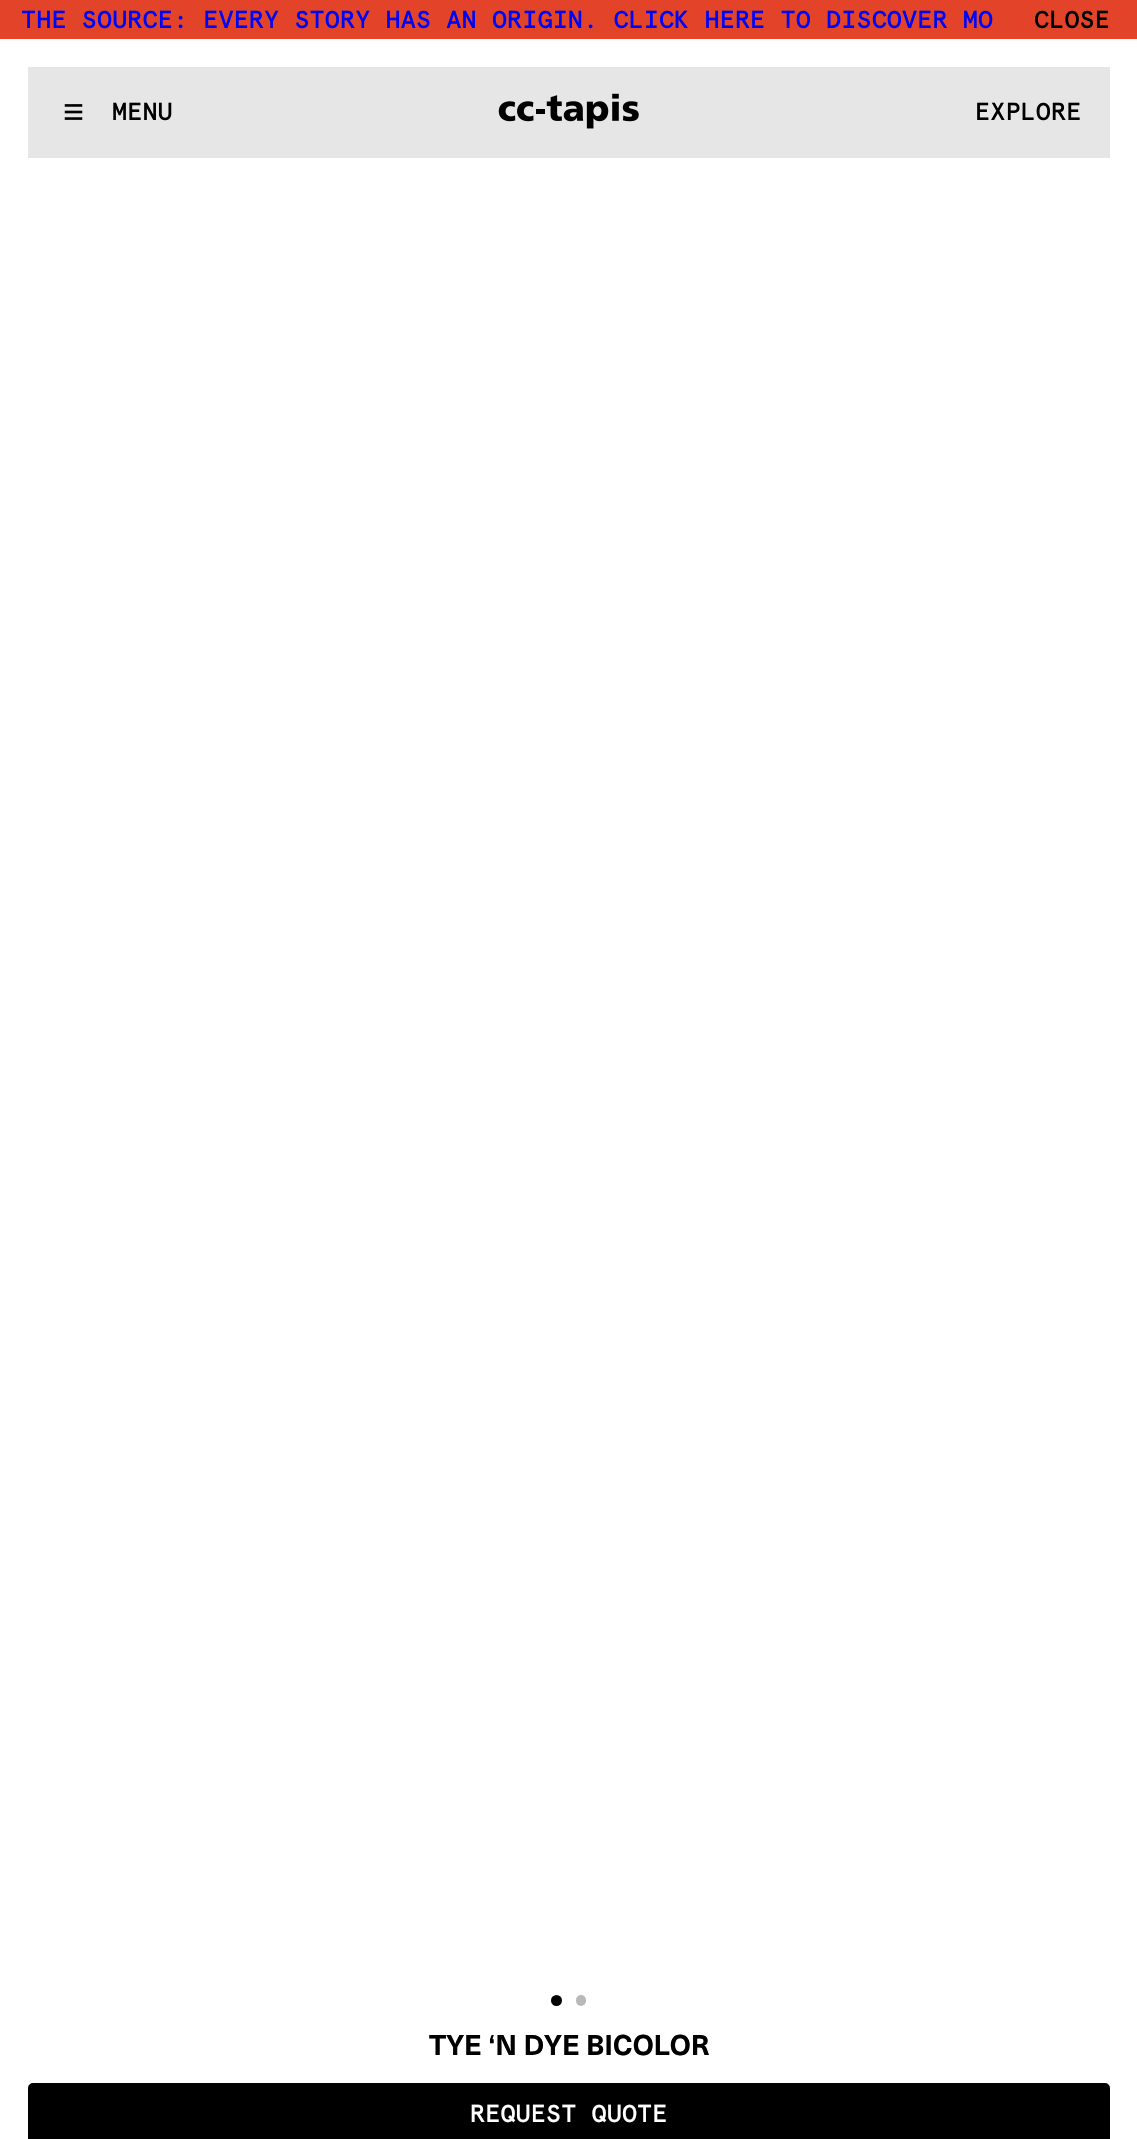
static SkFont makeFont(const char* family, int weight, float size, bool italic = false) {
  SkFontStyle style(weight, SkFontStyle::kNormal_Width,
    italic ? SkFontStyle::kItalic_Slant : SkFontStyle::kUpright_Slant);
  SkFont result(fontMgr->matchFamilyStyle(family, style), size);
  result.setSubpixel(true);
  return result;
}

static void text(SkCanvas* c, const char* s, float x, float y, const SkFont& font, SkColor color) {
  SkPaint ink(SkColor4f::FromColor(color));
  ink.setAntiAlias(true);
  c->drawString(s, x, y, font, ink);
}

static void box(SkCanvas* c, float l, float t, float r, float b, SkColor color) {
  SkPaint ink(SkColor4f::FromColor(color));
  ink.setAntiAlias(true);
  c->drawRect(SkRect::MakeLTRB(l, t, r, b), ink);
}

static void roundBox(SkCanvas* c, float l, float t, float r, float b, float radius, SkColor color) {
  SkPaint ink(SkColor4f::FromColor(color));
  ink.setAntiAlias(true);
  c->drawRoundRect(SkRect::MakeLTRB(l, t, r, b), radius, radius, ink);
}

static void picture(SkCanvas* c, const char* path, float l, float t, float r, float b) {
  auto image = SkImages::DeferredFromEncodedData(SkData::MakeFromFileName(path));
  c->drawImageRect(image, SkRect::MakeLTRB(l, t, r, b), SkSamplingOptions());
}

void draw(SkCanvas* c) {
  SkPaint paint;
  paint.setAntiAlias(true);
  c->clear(0xffffffff);
  box(c, 0, 0, 1137, 39, 0xffe24329);
  SkFont face1 = makeFont("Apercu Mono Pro", 500, 24.5f);
  text(c, "THE SOURCE: EVERY STORY HAS AN ORIGIN. CLICK HERE TO DISCOVER MO", 21, 28, face1, 0xff0005f5);
  text(c, "CLOSE", 1034, 28, face1, 0xff000000);
  box(c, 28, 67, 1110, 158, 0xffe6e6e6);
  picture(c, "img_01.png", 64, 104, 83, 120);
  text(c, "MENU", 112, 120, face1, 0xff000000);
  picture(c, "img_02.png", 498, 93, 639, 129);
  text(c, "EXPLORE", 975, 120, face1, 0xff000000);
  paint.setColor(0xff000000);
  c->drawCircle(556.5f, 2000.5f, 5.5f, paint);
  roundBox(c, 576, 1995, 586, 2006, 5, 0xffb9b9b9);
  SkFont face2 = makeFont("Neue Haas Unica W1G", 700, 28);
  text(c, "TYE ‘N DYE BICOLOR", 429, 2055, face2, 0xff000000);
  c->drawRoundRect(SkRect::MakeLTRB(29, 2084, 1109, 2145), 4, 4, paint);
  paint.setStyle(SkPaint::kStroke_Style);
  paint.setStrokeWidth(2);
  c->drawRoundRect(SkRect::MakeLTRB(29, 2084, 1109, 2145), 4, 4, paint);
  text(c, "REQUEST QUOTE", 470, 2122, face1, 0xffffffff);
}
